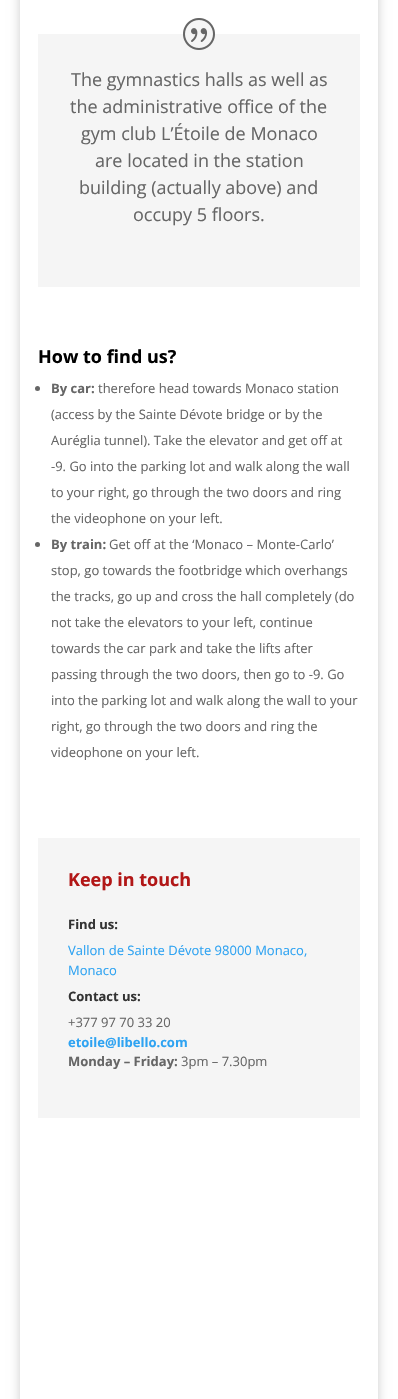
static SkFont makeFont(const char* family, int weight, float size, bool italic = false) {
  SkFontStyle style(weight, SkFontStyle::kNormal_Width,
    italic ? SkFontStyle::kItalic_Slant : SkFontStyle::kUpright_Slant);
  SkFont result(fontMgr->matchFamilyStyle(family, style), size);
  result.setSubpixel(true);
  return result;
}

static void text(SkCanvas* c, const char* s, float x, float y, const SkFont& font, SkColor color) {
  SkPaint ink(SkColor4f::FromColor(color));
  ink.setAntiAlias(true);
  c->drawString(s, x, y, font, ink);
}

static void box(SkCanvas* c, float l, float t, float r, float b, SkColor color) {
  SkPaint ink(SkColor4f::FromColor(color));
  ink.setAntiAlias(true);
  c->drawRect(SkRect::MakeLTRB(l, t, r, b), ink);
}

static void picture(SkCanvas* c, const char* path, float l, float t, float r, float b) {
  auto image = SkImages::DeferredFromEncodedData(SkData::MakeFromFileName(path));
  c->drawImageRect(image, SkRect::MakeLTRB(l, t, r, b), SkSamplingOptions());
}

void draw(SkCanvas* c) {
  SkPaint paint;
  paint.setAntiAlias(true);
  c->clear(0xffffffff);
  c->save();
  c->clipPath(SkPathBuilder(SkPathFillType::kEvenOdd).moveTo(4, 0).lineTo(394, 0).lineTo(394, 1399).lineTo(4, 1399).close().moveTo(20, -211).lineTo(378, -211).lineTo(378, 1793).lineTo(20, 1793).close().detach(), true);
  paint.setColor(0x33000000);
  paint.setMaskFilter(SkMaskFilter::MakeBlur(kNormal_SkBlurStyle, 5));
  c->drawRect(SkRect::MakeLTRB(20, -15, 378, 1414), paint);
  paint.setMaskFilter(nullptr);
  c->restore();
  box(c, 38, 34, 360, 287, 0xfff5f5f5);
  paint.setColor(0xfff5f5f5);
  c->drawCircle(199, 34, 16, paint);
  picture(c, "img_01.png", 183, 18, 215, 50);
  SkFont face1 = makeFont("Open Sans", 400, 18);
  text(c, "The gymnastics halls as well as", 71, 86, face1, 0xff666666);
  text(c, "the administrative office of the", 70, 113, face1, 0xff666666);
  text(c, "gym club L’Étoile de Monaco", 81, 140, face1, 0xff666666);
  text(c, "are located in the station", 95, 167, face1, 0xff666666);
  text(c, "building (actually above) and", 79, 194, face1, 0xff666666);
  text(c, "occupy 5 floors.", 133, 221, face1, 0xff666666);
  SkFont face2 = makeFont("Open Sans", 700, 18);
  text(c, "How to find us?", 38, 363, face2, 0xff000000);
  paint.setColor(0xff666666);
  c->drawCircle(37.5f, 388.5f, 2.5f, paint);
  SkFont face3 = makeFont("Open Sans", 700, 13);
  text(c, "By car:", 51, 393, face3, 0xff666666);
  SkFont face4 = makeFont("Open Sans", 400, 13);
  text(c, "therefore head towards Monaco station", 98, 393, face4, 0xff666666);
  text(c, "(access by the Sainte Dévote bridge or by the", 51, 419, face4, 0xff666666);
  text(c, "Auréglia tunnel). Take the elevator and get off at", 51, 445, face4, 0xff666666);
  text(c, "-9. Go into the parking lot and walk along the wall", 51, 471, face4, 0xff666666);
  text(c, "to your right, go through the two doors and ring", 51, 497, face4, 0xff666666);
  text(c, "the videophone on your left.", 51, 523, face4, 0xff666666);
  c->drawCircle(37.5f, 544.5f, 2.5f, paint);
  text(c, "By train:", 51, 549, face3, 0xff666666);
  text(c, "Get off at the ‘Monaco – Monte-Carlo’", 109, 549, face4, 0xff666666);
  text(c, "stop, go towards the footbridge which overhangs", 51, 575, face4, 0xff666666);
  text(c, "the tracks, go up and cross the hall completely (do", 51, 601, face4, 0xff666666);
  text(c, "not take the elevators to your left, continue", 51, 627, face4, 0xff666666);
  text(c, "towards the car park and take the lifts after", 51, 653, face4, 0xff666666);
  text(c, "passing through the two doors, then go to -9. Go", 51, 679, face4, 0xff666666);
  text(c, "into the parking lot and walk along the wall to your", 51, 705, face4, 0xff666666);
  text(c, "right, go through the two doors and ring the", 51, 731, face4, 0xff666666);
  text(c, "videophone on your left.", 51, 757, face4, 0xff666666);
  box(c, 38, 838, 360, 1118, 0xfff5f5f5);
  text(c, "Keep in touch", 68, 886, face2, 0xffb21717);
  text(c, "Find us:", 68, 929, face3, 0xff333333);
  text(c, "Vallon de Sainte Dévote 98000 Monaco,", 68, 955, face4, 0xff2ea3f2);
  text(c, "Monaco", 68, 975, face4, 0xff2ea3f2);
  text(c, "Contact us:", 68, 1001, face3, 0xff333333);
  text(c, "+377 97 70 33 20", 68, 1027, face4, 0xff666666);
  text(c, "etoile@libello.com", 68, 1047, face3, 0xff2ea3f2);
  text(c, "Monday – Friday:", 68, 1066, face3, 0xff666666);
  text(c, "3pm – 7.30pm", 181, 1066, face4, 0xff666666);
}
